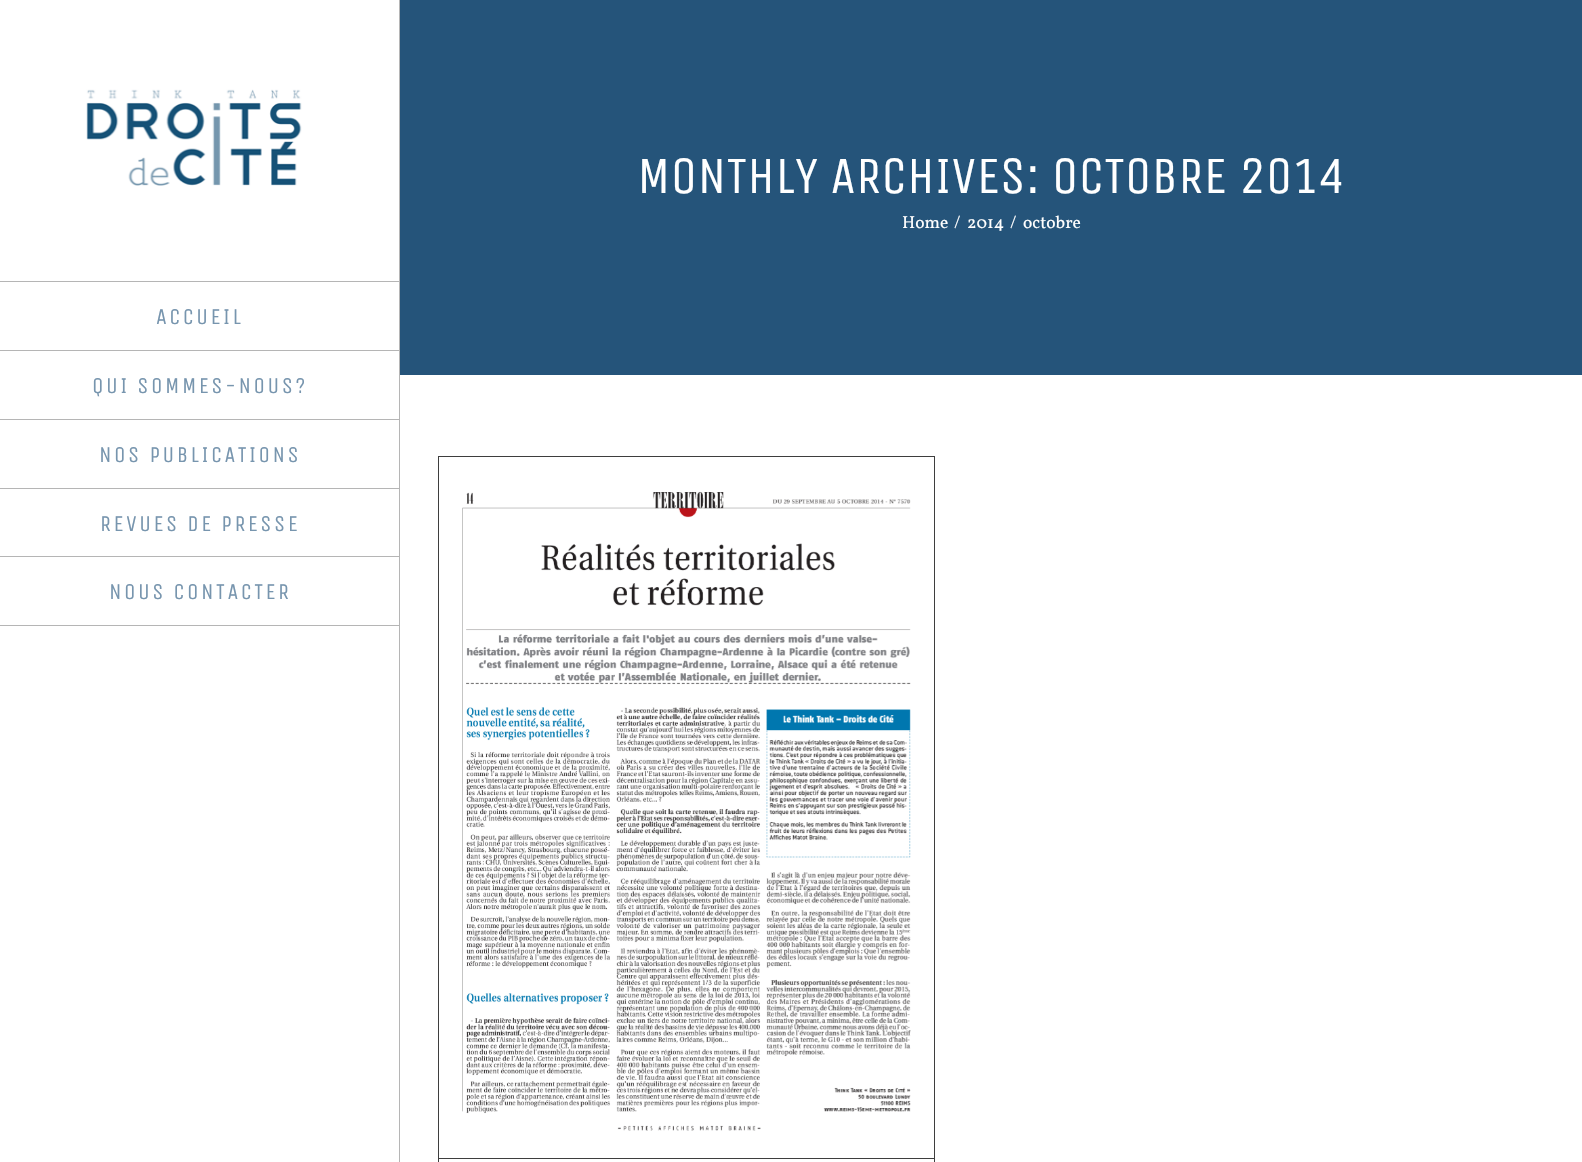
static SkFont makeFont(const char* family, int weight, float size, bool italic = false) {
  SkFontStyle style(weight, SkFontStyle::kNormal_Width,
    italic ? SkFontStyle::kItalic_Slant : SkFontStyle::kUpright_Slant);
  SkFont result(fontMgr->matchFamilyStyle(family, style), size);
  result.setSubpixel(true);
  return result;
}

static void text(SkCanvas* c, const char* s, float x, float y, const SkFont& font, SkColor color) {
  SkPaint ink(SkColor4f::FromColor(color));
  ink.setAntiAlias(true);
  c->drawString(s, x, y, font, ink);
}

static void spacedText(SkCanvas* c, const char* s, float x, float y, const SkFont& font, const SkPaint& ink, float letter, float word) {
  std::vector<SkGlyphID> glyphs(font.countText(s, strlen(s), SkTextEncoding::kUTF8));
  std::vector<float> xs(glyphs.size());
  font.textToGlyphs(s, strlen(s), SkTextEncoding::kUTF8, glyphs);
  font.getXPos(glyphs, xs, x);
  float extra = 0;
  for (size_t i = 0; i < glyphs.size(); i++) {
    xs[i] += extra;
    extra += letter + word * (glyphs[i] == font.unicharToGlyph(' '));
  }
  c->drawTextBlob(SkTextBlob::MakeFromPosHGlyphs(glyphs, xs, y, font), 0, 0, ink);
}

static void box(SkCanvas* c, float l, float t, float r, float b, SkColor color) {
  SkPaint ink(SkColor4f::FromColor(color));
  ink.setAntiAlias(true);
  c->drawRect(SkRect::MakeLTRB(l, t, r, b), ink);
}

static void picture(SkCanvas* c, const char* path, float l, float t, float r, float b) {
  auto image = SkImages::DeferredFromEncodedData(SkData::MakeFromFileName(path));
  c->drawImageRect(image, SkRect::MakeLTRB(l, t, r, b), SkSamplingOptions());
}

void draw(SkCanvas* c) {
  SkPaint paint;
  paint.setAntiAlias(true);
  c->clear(0xffffffff);
  box(c, 400, 0, 1582, 375, 0xff25547a);
  SkFont face1 = makeFont("Unica One", 400, 52.5f);
  text(c, "MONTHLY ARCHIVES: OCTOBRE 2014", 637, 193, face1, 0xffffffff);
  SkFont face2 = makeFont("Vollkorn", 400, 17.5f);
  text(c, "Home", 902, 228, face2, 0xffffffff);
  text(c, "/", 954, 228, face2, 0xffffffff);
  text(c, "2014", 967, 228, face2, 0xffffffff);
  text(c, "/", 1010, 228, face2, 0xffffffff);
  text(c, "octobre", 1023, 228, face2, 0xffffffff);
  picture(c, "img_01.png", 86, 89, 302, 186);
  box(c, 399, 0, 400, 1162, 0xffb5b5b5);
  box(c, 0, 281, 400, 282, 0xffb5b5b5);
  box(c, 0, 350, 400, 351, 0xffb5b5b5);
  SkFont face3 = makeFont("Unica One", 400, 22.5f);
  paint.setColor(0xff7795ae);
  spacedText(c, "ACCUEIL", 156, 324, face3, paint, 2.5f, 0);
  box(c, 0, 419, 400, 420, 0xffb5b5b5);
  spacedText(c, "QUI SOMMES-NOUS?", 92, 393, face3, paint, 2.5f, 0);
  box(c, 0, 488, 400, 489, 0xffb5b5b5);
  spacedText(c, "NOS PUBLICATIONS", 99, 462, face3, paint, 2.5f, 0);
  box(c, 0, 556, 400, 557, 0xffb5b5b5);
  spacedText(c, "REVUES DE PRESSE", 100, 531, face3, paint, 2.5f, 0);
  box(c, 0, 625, 400, 626, 0xffb5b5b5);
  spacedText(c, "NOUS CONTACTER", 109, 599, face3, paint, 2.5f, 0);
  box(c, 438, 456, 935, 457, 0xff3e3e3e);
  box(c, 934, 456, 935, 1162, 0xff3e3e3e);
  box(c, 438, 456, 439, 1162, 0xff3e3e3e);
  box(c, 439, 1158, 934, 1159, 0xff3e3e3e);
  picture(c, "img_02.png", 462, 491, 911, 1131);
}
